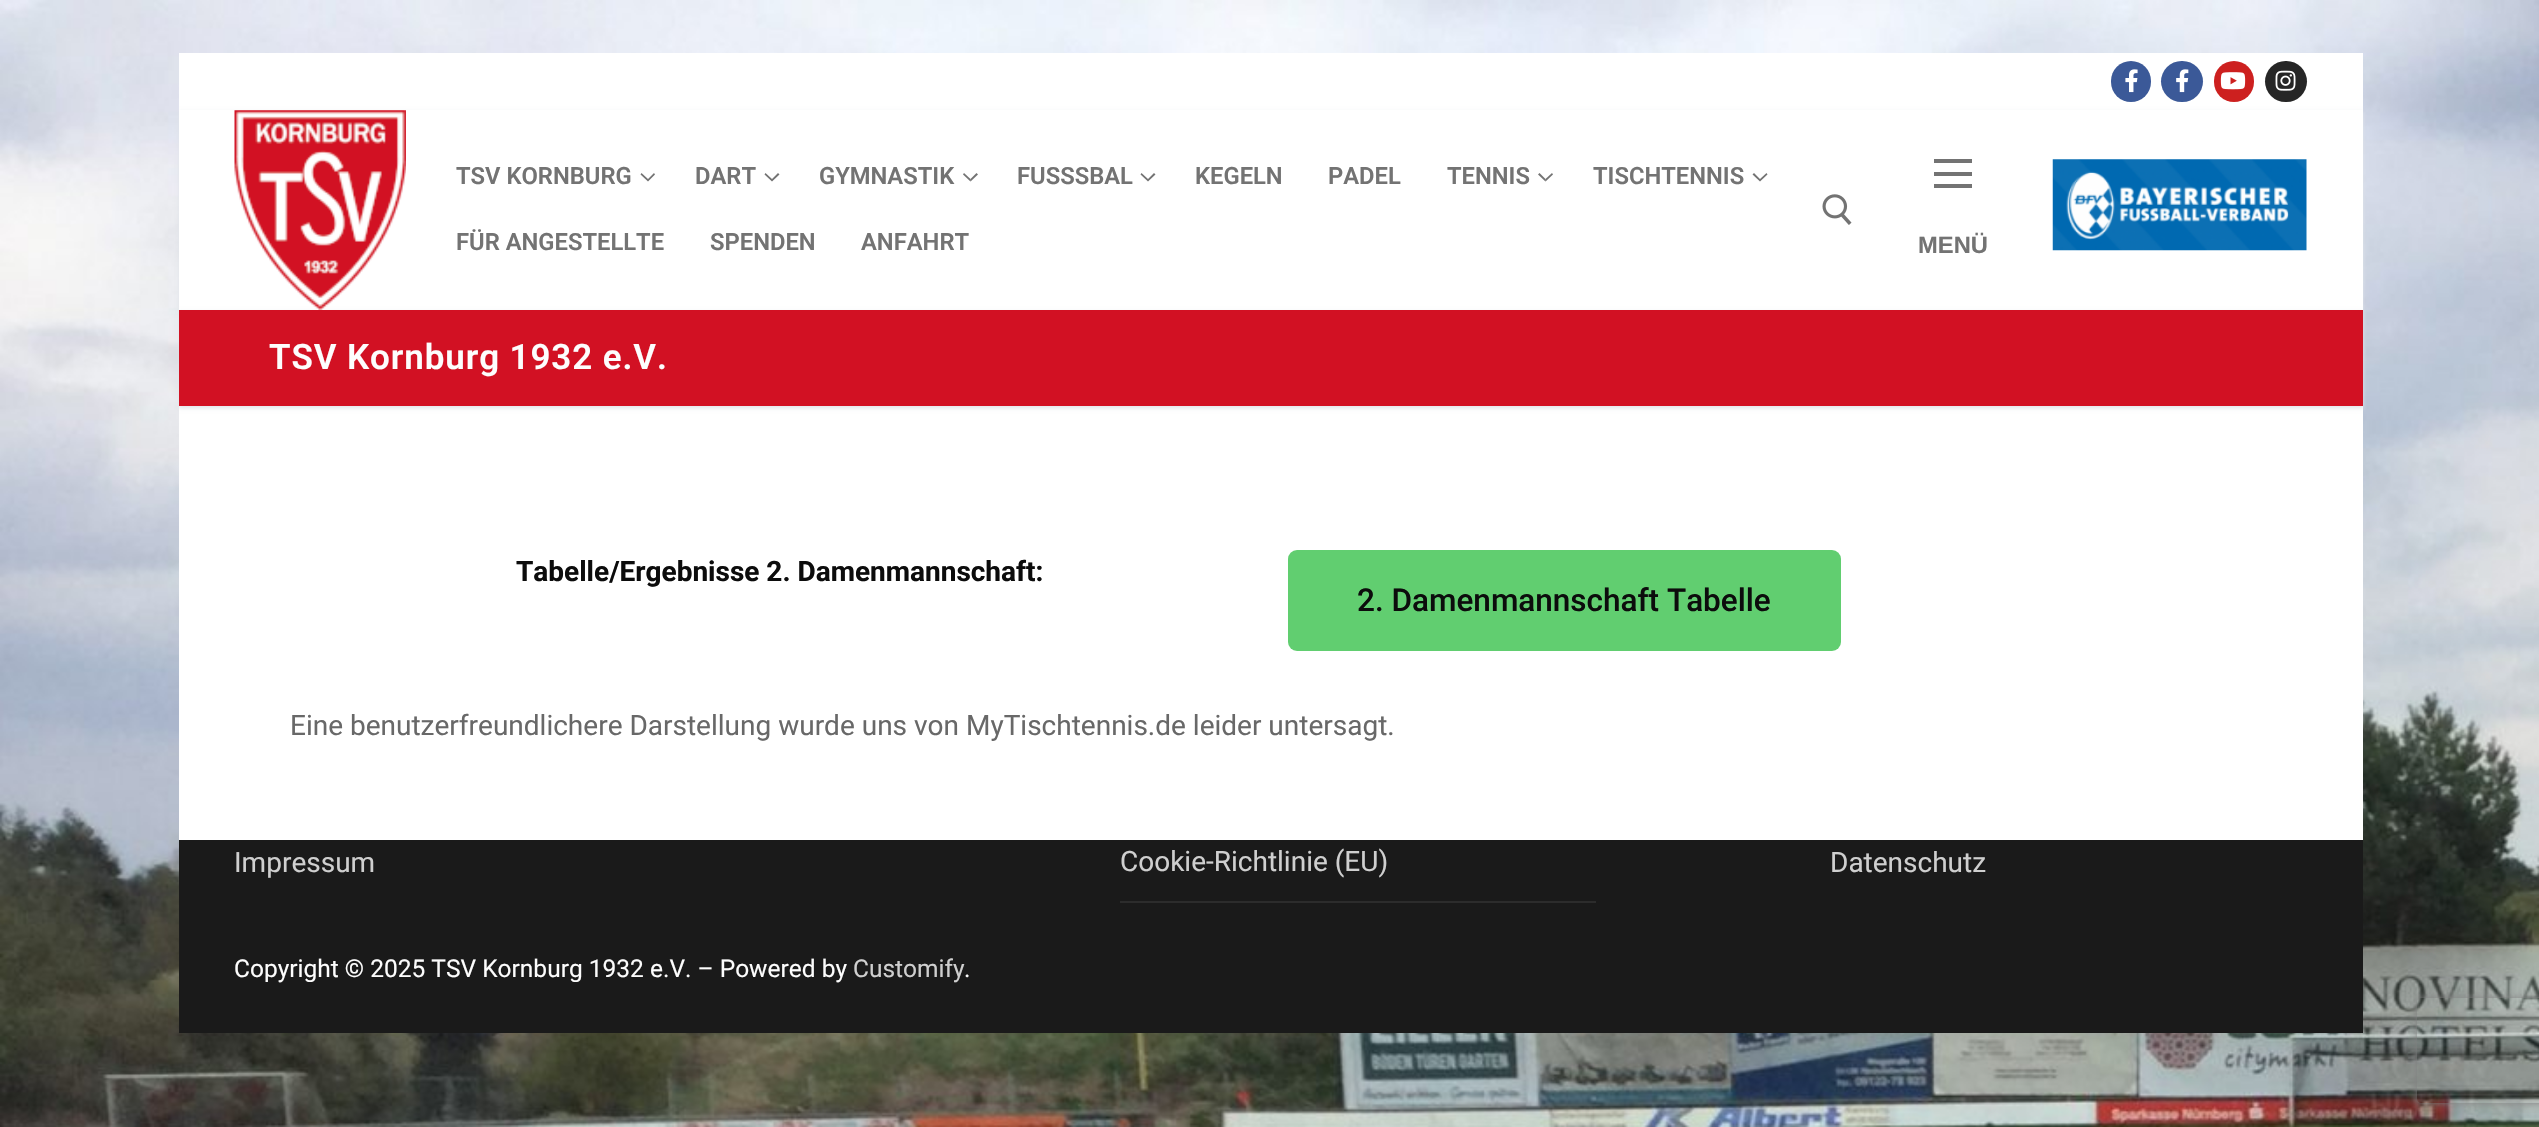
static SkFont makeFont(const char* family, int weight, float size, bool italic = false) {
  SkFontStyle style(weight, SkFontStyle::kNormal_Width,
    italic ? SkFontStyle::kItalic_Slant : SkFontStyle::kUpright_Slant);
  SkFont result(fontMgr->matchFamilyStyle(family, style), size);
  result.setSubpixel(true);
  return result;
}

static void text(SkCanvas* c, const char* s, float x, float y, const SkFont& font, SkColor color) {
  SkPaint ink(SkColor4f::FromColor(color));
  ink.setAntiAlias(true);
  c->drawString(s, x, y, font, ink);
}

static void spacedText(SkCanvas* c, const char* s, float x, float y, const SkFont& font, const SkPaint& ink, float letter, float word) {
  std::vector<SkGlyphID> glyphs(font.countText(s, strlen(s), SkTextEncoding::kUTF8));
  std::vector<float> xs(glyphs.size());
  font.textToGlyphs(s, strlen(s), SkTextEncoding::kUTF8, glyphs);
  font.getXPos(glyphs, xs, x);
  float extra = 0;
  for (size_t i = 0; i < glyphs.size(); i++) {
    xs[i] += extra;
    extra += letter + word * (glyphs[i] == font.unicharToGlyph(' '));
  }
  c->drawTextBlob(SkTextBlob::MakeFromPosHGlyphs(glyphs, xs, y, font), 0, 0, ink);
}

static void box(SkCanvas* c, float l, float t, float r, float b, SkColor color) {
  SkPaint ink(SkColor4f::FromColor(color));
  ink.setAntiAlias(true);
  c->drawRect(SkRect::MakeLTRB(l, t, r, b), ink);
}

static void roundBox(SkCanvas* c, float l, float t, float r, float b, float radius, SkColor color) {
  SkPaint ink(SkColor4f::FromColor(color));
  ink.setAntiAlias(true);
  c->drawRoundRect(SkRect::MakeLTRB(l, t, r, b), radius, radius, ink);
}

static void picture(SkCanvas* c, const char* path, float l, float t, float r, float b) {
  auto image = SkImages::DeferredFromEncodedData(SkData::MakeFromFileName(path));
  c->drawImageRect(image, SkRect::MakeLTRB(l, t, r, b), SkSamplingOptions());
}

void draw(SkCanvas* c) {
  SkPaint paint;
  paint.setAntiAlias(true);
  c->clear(0xffffffff);
  picture(c, "img_01.png", 0, 0, 2539, 1127);
  box(c, 179, 53, 2363, 110, 0xffffffff);
  roundBox(c, 2111, 61, 2151, 102, 20, 0xff3b5998);
  picture(c, "img_02.png", 2125, 69, 2138, 93);
  roundBox(c, 2161, 61, 2203, 102, 20.5f, 0xff3b5998);
  picture(c, "img_03.png", 2176, 69, 2189, 93);
  roundBox(c, 2214, 61, 2254, 102, 20, 0xffcd201f);
  picture(c, "img_04.png", 2220, 72, 2246, 90);
  roundBox(c, 2265, 61, 2307, 102, 20.5f, 0xff262626);
  picture(c, "img_05.png", 2275, 70, 2296, 91);
  paint.setColor(0xffe1e5ea);
  paint.setMaskFilter(SkMaskFilter::MakeBlur(kNormal_SkBlurStyle, 2));
  c->drawRect(SkRect::MakeLTRB(179, 112, 2363, 312), paint);
  paint.setMaskFilter(nullptr);
  box(c, 179, 110, 2363, 310, 0xffffffff);
  box(c, 179, 406, 2363, 840, 0xffffffff);
  paint.setMaskFilter(SkMaskFilter::MakeBlur(kNormal_SkBlurStyle, 2));
  c->drawRect(SkRect::MakeLTRB(179, 312, 2363, 408), paint);
  paint.setMaskFilter(nullptr);
  picture(c, "img_06.png", 234, 110, 406, 310);
  SkFont face1 = makeFont("Roboto", 600, 23.75f);
  text(c, "TSV KORNBURG", 456, 184, face1, 0xff737373);
  paint.setColor(0xff737373);
  c->drawPath(SkPathBuilder().moveTo(648, 181.5f).lineTo(640.5f, 174.5f).lineTo(641.5f, 173).lineTo(648, 179).close().moveTo(655, 174.5f).lineTo(648, 181.5f).lineTo(648, 179).lineTo(654, 173).close().detach(), paint);
  text(c, "DART", 695, 184, face1, 0xff737373);
  c->drawPath(SkPathBuilder().moveTo(772, 181.5f).lineTo(764.5f, 174.5f).lineTo(765.5f, 173).lineTo(772, 179).close().moveTo(779.5f, 174.5f).lineTo(772, 181.5f).lineTo(772, 179).lineTo(778, 173).close().detach(), paint);
  text(c, "GYMNASTIK", 819, 184, face1, 0xff737373);
  c->drawPath(SkPathBuilder().moveTo(970.5f, 181.5f).lineTo(963, 174.5f).lineTo(964, 173).lineTo(970.5f, 179).close().detach(), paint);
  paint.setColor(0x8c000000);
  c->drawPath(SkPathBuilder().moveTo(978, 174.5f).lineTo(970.5f, 181.5f).lineTo(970.5f, 179).lineTo(976.5f, 173).close().detach(), paint);
  text(c, "FUSSSBAL", 1017, 184, face1, 0xff737373);
  paint.setColor(0xff737373);
  c->drawPath(SkPathBuilder().moveTo(1148, 181.5f).lineTo(1140.5f, 174.5f).lineTo(1141.5f, 173).lineTo(1148, 179).close().moveTo(1155.5f, 174.5f).lineTo(1148, 181.5f).lineTo(1148, 179).lineTo(1154, 173).close().detach(), paint);
  text(c, "KEGELN", 1195, 184, face1, 0xff737373);
  text(c, "PADEL", 1328, 184, face1, 0xff737373);
  text(c, "TENNIS", 1447, 184, face1, 0xff737373);
  c->drawPath(SkPathBuilder().moveTo(1545.5f, 181.5f).lineTo(1538, 174.5f).lineTo(1539.5f, 173).lineTo(1545.5f, 179).close().detach(), paint);
  paint.setColor(0x8c000000);
  c->drawPath(SkPathBuilder().moveTo(1553, 174.5f).lineTo(1545.5f, 181.5f).lineTo(1545.5f, 179).lineTo(1552, 173).close().detach(), paint);
  text(c, "TISCHTENNIS", 1593, 184, face1, 0xff737373);
  paint.setColor(0xff737373);
  c->drawPath(SkPathBuilder().moveTo(1760, 181.5f).lineTo(1752.5f, 174.5f).lineTo(1754, 173).lineTo(1760, 179).close().moveTo(1767.5f, 174.5f).lineTo(1760, 181.5f).lineTo(1760, 179).lineTo(1766.5f, 173).close().detach(), paint);
  text(c, "FÜR ANGESTELLTE", 456, 250, face1, 0xff737373);
  text(c, "SPENDEN", 710, 250, face1, 0xff737373);
  text(c, "ANFAHRT", 861, 250, face1, 0xff737373);
  picture(c, "img_07.png", 1822, 194, 1852, 225);
  picture(c, "img_08.png", 2052, 159, 2307, 251);
  box(c, 1934, 172, 1972, 176, 0xff737373);
  box(c, 1934, 159, 1972, 163, 0xff737373);
  box(c, 1934, 184, 1972, 188, 0xff737373);
  SkFont face2 = makeFont("Liberation Sans", 700, 23.75f);
  text(c, "MENÜ", 1918, 253, face2, 0xff737373);
  box(c, 179, 310, 2363, 406, 0xffd21123);
  SkFont face3 = makeFont("Roboto", 600, 35);
  paint.setColor(0xfffdfdfd);
  spacedText(c, "TSV Kornburg 1932 e.V.", 269, 369, face3, paint, 0.9f, 0);
  SkFont face4 = makeFont("Roboto", 700, 28);
  text(c, "Tabelle/Ergebnisse 2. Damenmannschaft:", 516, 581, face4, 0xff0c0c0c);
  roundBox(c, 1288, 550, 1841, 651, 9, 0xff61ce70);
  SkFont face5 = makeFont("Roboto", 500, 31.5f);
  text(c, "2. Damenmannschaft Tabelle", 1357, 611, face5, 0xff0c0c0c);
  SkFont face6 = makeFont("Roboto", 400, 28);
  text(c, "Eine benutzerfreundlichere Darstellung wurde uns von MyTischtennis.de leider untersagt.", 290, 735, face6, 0xff686868);
  box(c, 179, 840, 2363, 1033, 0xff1a1a1a);
  text(c, "Impressum", 234, 872, face6, 0xffcfcfcf);
  box(c, 1120, 901, 1596, 903, 0xff2c2c2c);
  text(c, "Cookie-Richtlinie (EU)", 1120, 871, face6, 0xffcfcfcf);
  text(c, "Datenschutz", 1830, 872, face6, 0xffcfcfcf);
  SkFont face7 = makeFont("Roboto", 400, 24.5f);
  text(c, "Copyright © 2025 TSV Kornburg 1932 e.V. – Powered by", 234, 977, face7, 0xfffdfdfd);
  text(c, "Customify", 853, 977, face7, 0xffcfcfcf);
  text(c, ".", 964, 977, face7, 0xfffdfdfd);
  c->save();
  c->clipPath(SkPathBuilder(SkPathFillType::kEvenOdd).moveTo(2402, 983).lineTo(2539, 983).lineTo(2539, 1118).lineTo(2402, 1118).close().moveTo(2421, 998).lineTo(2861, 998).cubicTo(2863, 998, 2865, 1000, 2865, 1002).lineTo(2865, 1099).cubicTo(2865, 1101, 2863, 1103, 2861, 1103).lineTo(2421, 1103).cubicTo(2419, 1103, 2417, 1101, 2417, 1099).lineTo(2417, 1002).cubicTo(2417, 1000, 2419, 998, 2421, 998).close().detach(), true);
  paint.setColor(0xff808080);
  paint.setMaskFilter(SkMaskFilter::MakeBlur(kNormal_SkBlurStyle, 4.5f));
  c->drawRoundRect(SkRect::MakeLTRB(2417, 998, 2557, 1103), 4, 4, paint);
  paint.setMaskFilter(nullptr);
  c->restore();
}
